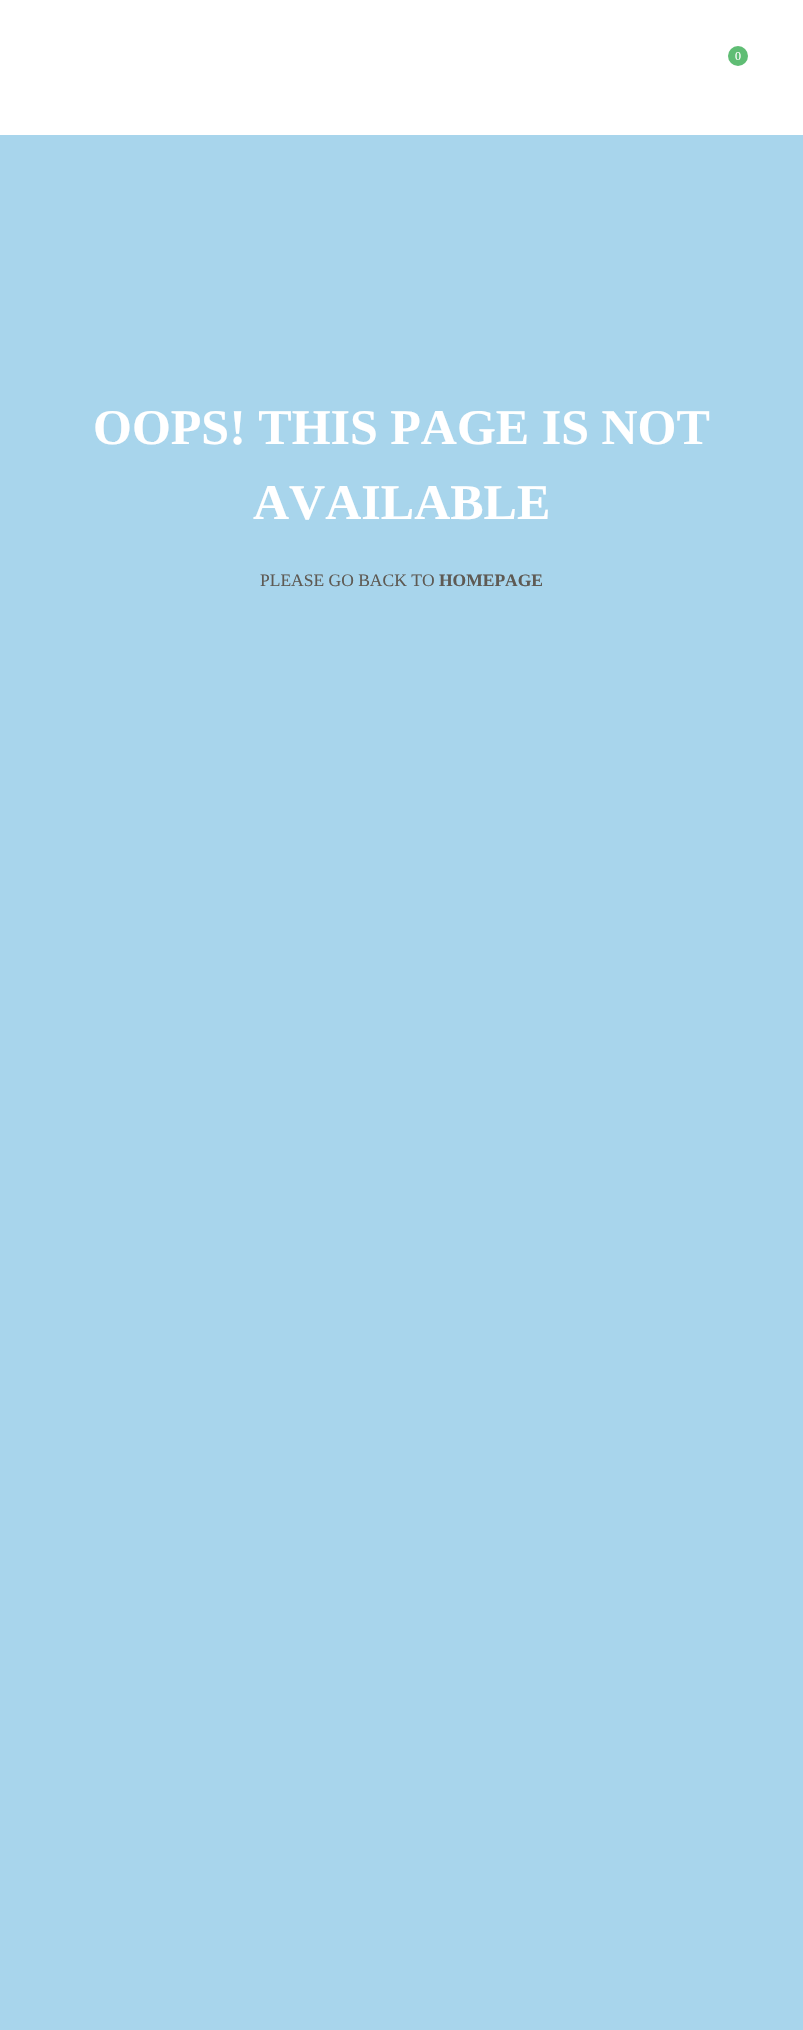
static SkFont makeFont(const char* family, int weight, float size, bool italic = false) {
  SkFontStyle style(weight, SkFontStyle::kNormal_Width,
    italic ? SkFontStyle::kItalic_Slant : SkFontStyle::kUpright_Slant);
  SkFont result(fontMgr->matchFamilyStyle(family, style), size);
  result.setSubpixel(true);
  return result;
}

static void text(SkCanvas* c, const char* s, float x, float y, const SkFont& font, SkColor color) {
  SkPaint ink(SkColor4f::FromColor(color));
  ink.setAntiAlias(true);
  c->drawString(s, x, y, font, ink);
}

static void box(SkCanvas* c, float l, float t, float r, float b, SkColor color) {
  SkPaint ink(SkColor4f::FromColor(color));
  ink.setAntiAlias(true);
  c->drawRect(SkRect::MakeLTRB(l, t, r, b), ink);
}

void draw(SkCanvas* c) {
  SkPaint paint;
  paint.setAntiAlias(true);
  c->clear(0xffa8d5ec);
  box(c, 0, 0, 803, 135, 0xffffffff);
  paint.setColor(0xff5fbd74);
  c->drawCircle(738, 56, 10, paint);
  SkFont face1 = makeFont("Liberation Serif", 400, 12);
  text(c, "0", 735, 60, face1, 0xffffffff);
  SkFont face2 = makeFont("Liberation Serif", 700, 50);
  text(c, "OOPS! THIS PAGE IS NOT", 93, 444, face2, 0xffffffff);
  text(c, "AVAILABLE", 253, 519, face2, 0xffffffff);
  SkFont face3 = makeFont("Liberation Serif", 400, 17.5f);
  text(c, "PLEASE GO BACK TO", 260, 586, face3, 0xff5e5a54);
  SkFont face4 = makeFont("Liberation Serif", 700, 17.5f);
  text(c, "HOMEPAGE", 439, 586, face4, 0xff5e5a54);
}
